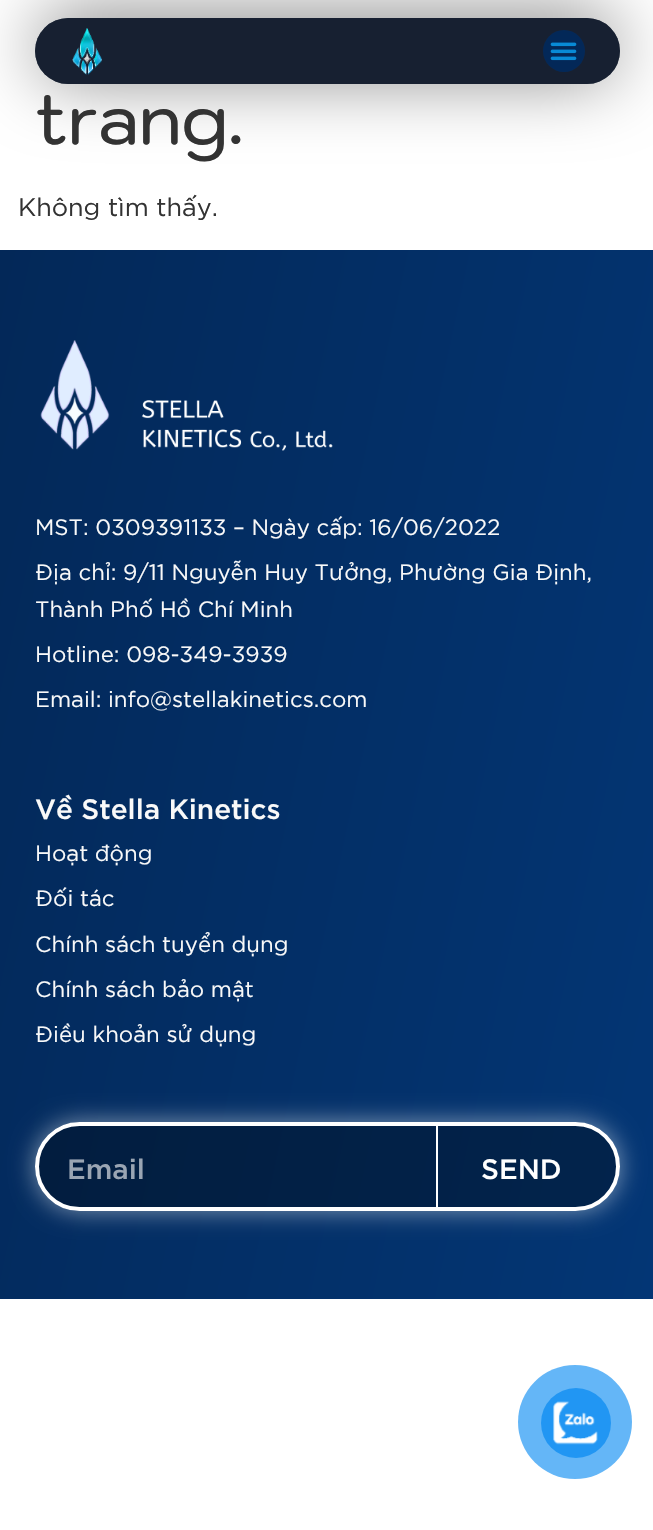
static SkFont makeFont(const char* family, int weight, float size, bool italic = false) {
  SkFontStyle style(weight, SkFontStyle::kNormal_Width,
    italic ? SkFontStyle::kItalic_Slant : SkFontStyle::kUpright_Slant);
  SkFont result(fontMgr->matchFamilyStyle(family, style), size);
  result.setSubpixel(true);
  return result;
}

static void text(SkCanvas* c, const char* s, float x, float y, const SkFont& font, SkColor color) {
  SkPaint ink(SkColor4f::FromColor(color));
  ink.setAntiAlias(true);
  c->drawString(s, x, y, font, ink);
}

static void box(SkCanvas* c, float l, float t, float r, float b, SkColor color) {
  SkPaint ink(SkColor4f::FromColor(color));
  ink.setAntiAlias(true);
  c->drawRect(SkRect::MakeLTRB(l, t, r, b), ink);
}

static void roundBox(SkCanvas* c, float l, float t, float r, float b, float radius, SkColor color) {
  SkPaint ink(SkColor4f::FromColor(color));
  ink.setAntiAlias(true);
  c->drawRoundRect(SkRect::MakeLTRB(l, t, r, b), radius, radius, ink);
}

static void picture(SkCanvas* c, const char* path, float l, float t, float r, float b) {
  auto image = SkImages::DeferredFromEncodedData(SkData::MakeFromFileName(path));
  c->drawImageRect(image, SkRect::MakeLTRB(l, t, r, b), SkSamplingOptions());
}

void draw(SkCanvas* c) {
  SkPaint paint;
  paint.setAntiAlias(true);
  c->clear(0xffffffff);
  c->save();
  c->clipPath(SkPathBuilder(SkPathFillType::kEvenOdd).moveTo(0, 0).lineTo(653, 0).lineTo(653, 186).lineTo(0, 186).close().moveTo(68, 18).lineTo(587, 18).cubicTo(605, 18, 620, 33, 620, 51).cubicTo(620, 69, 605, 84, 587, 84).lineTo(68, 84).cubicTo(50, 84, 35, 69, 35, 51).cubicTo(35, 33, 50, 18, 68, 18).close().detach(), true);
  paint.setColor(0x80000000);
  paint.setMaskFilter(SkMaskFilter::MakeBlur(kNormal_SkBlurStyle, 36));
  c->drawRoundRect(SkRect::MakeLTRB(37, 14, 618, 77), 31.5f, 31.5f, paint);
  paint.setMaskFilter(nullptr);
  c->restore();
  roundBox(c, 35, 18, 620, 84, 33, 0xcc0c1628);
  roundBox(c, 35, 18, 620, 84, 33, 0xcc0c1628);
  picture(c, "img_01.png", 72, 28, 102, 75);
  paint.setColor(0xff032858);
  c->drawCircle(564, 51, 21, paint);
  picture(c, "img_02.png", 550, 42, 577, 61);
  SkFont face1 = makeFont("Kodchasan", 500, 70);
  text(c, "trang.", 35, 144, face1, 0xff333333);
  SkFont face2 = makeFont("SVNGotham", 400, 25.25f);
  text(c, "Không tìm thấy.", 18, 216, face2, 0xff333333);
  {
    const SkColor colors[] = {0xff033675, 0xff032858};
    const float stops[] = {0, 1};
    const SkPoint ends[] = {{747, 864}, {-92, 685}};
    paint.setShader(SkGradientShader::MakeLinear(ends, colors, stops, 2, SkTileMode::kClamp));
    paint.setAlpha(255);
  }
  c->drawRect(SkRect::MakeLTRB(0, 250, 653, 1299), paint);
  picture(c, "img_03.png", 40, 340, 333, 451);
  SkFont face3 = makeFont("SVNGotham", 400, 22.25f);
  text(c, "MST: 0309391133 – Ngày cấp: 16/06/2022", 35, 535, face3, 0xfff9f9f9);
  text(c, "Địa chỉ: 9/11 Nguyễn Huy Tưởng, Phường Gia Định,", 35, 580, face3, 0xfff9f9f9);
  text(c, "Thành Phố Hồ Chí Minh", 35, 617, face3, 0xfff9f9f9);
  text(c, "Hotline: 098-349-3939", 35, 662, face3, 0xfff9f9f9);
  text(c, "Email: info@stellakinetics.com", 35, 707, face3, 0xfff9f9f9);
  SkFont face4 = makeFont("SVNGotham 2", 400, 28);
  text(c, "Về Stella Kinetics", 35, 819, face4, 0xfff9f9f9);
  text(c, "Hoạt động", 35, 861, face3, 0xfff9f9f9);
  text(c, "Đối tác", 35, 906, face3, 0xfff9f9f9);
  text(c, "Chính sách tuyển dụng", 35, 952, face3, 0xfff9f9f9);
  text(c, "Chính sách bảo mật", 35, 997, face3, 0xfff9f9f9);
  text(c, "Điều khoản sử dụng", 35, 1042, face3, 0xfff9f9f9);
  c->save();
  c->clipPath(SkPathBuilder(SkPathFillType::kEvenOdd).moveTo(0, 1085).lineTo(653, 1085).lineTo(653, 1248).lineTo(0, 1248).close().moveTo(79.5f, 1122).lineTo(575.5f, 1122).cubicTo(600, 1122, 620, 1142, 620, 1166.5f).cubicTo(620, 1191, 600, 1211, 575.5f, 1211).lineTo(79.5f, 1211).cubicTo(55, 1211, 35, 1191, 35, 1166.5f).cubicTo(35, 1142, 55, 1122, 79.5f, 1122).close().detach(), true);
  paint.setShader(nullptr);
  paint.setColor(0x80ffffff);
  paint.setMaskFilter(SkMaskFilter::MakeBlur(kNormal_SkBlurStyle, 12));
  c->drawRoundRect(SkRect::MakeLTRB(35, 1122, 620, 1211), 44.5f, 44.5f, paint);
  paint.setMaskFilter(nullptr);
  c->restore();
  paint.setColor(0x57000000);
  c->drawRoundRect(SkRect::MakeLTRB(37, 1124, 618, 1209), 42.5f, 42.5f, paint);
  paint.setStyle(SkPaint::kStroke_Style);
  paint.setStrokeWidth(4);
  paint.setColor(0xffffffff);
  c->drawRoundRect(SkRect::MakeLTRB(37, 1124, 618, 1209), 42.5f, 42.5f, paint);
  box(c, 436, 1125, 438, 1208, 0xffffffff);
  text(c, "Email", 67, 1179, face4, 0xff9aa5b3);
  text(c, "SEND", 481, 1179, face4, 0xffffffff);
  paint.setStyle(SkPaint::kFill_Style);
  paint.setColor(0xff64b6f7);
  c->drawCircle(575, 1422, 57, paint);
  paint.setColor(0xff2196f3);
  c->drawCircle(576, 1423, 35, paint);
  picture(c, "img_04.png", 553, 1401, 598, 1445);
}
